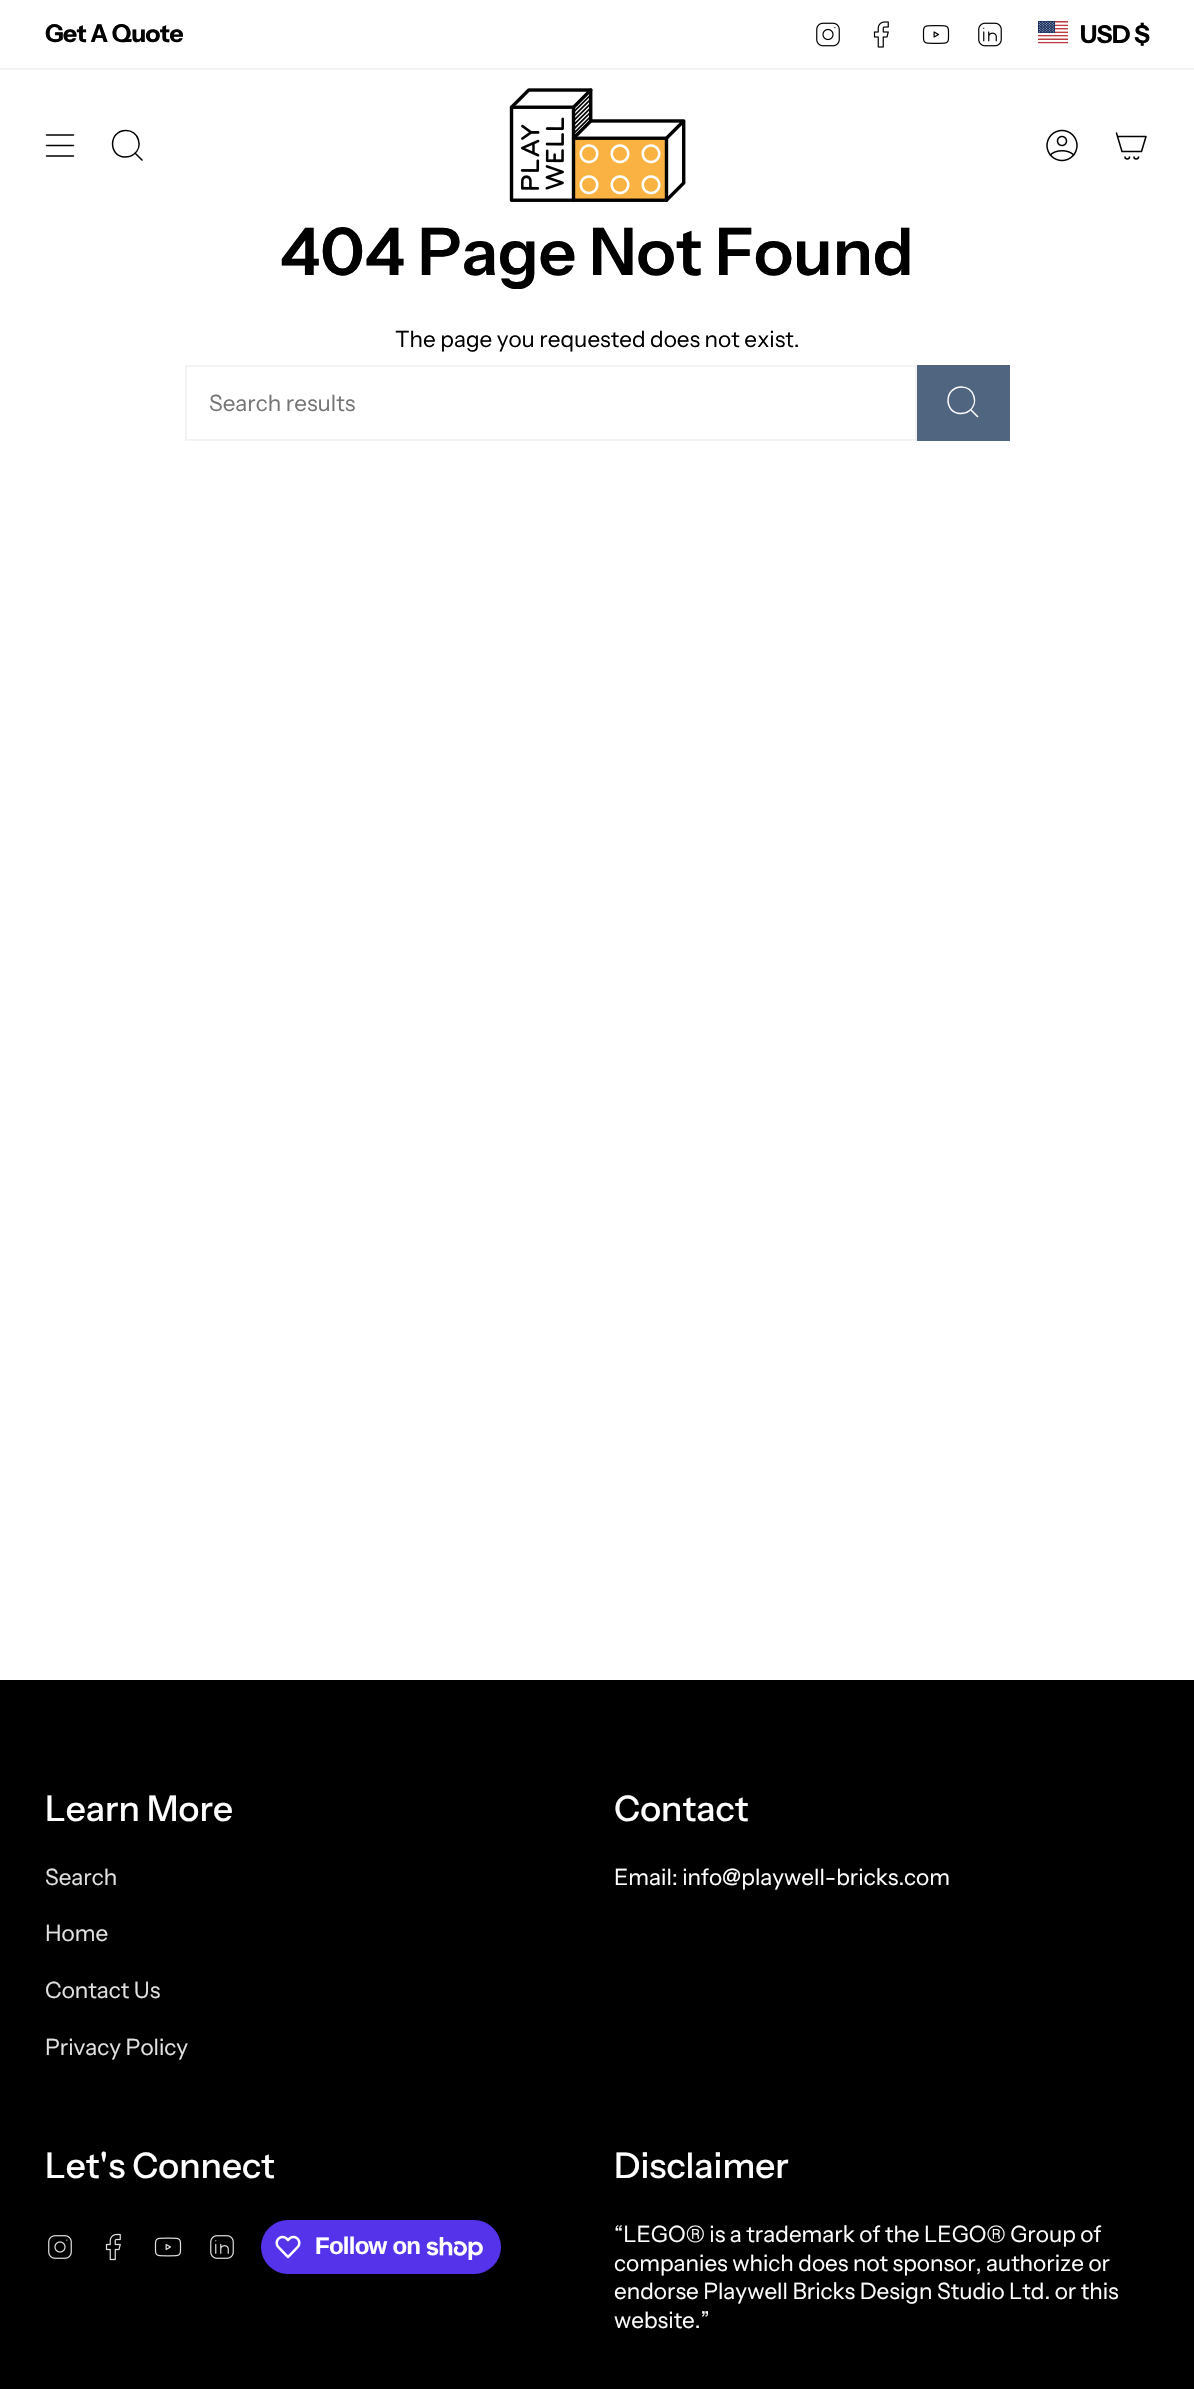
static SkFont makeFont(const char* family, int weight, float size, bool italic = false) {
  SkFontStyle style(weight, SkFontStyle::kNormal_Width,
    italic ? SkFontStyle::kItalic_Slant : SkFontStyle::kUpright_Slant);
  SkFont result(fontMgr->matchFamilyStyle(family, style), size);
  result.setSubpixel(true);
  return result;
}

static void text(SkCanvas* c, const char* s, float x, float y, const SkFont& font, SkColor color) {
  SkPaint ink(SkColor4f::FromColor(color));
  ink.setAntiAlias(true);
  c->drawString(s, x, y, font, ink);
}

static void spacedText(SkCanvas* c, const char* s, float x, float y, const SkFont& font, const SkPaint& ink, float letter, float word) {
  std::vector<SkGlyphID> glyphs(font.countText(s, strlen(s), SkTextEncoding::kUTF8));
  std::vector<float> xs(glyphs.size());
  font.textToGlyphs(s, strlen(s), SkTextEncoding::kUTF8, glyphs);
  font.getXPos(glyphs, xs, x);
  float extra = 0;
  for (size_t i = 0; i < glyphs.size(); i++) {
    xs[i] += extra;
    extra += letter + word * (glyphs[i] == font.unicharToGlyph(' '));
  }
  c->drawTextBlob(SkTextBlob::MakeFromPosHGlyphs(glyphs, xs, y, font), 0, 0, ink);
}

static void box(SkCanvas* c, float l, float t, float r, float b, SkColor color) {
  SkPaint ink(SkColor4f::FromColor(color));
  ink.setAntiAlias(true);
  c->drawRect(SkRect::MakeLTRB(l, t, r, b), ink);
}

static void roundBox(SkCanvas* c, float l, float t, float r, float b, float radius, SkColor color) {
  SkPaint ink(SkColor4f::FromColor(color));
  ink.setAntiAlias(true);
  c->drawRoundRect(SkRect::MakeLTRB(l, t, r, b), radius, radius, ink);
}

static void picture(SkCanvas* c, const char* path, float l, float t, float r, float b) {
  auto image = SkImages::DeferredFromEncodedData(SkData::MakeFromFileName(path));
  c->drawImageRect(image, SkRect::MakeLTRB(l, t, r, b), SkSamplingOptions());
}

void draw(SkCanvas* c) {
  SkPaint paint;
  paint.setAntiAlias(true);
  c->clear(0xffffffff);
  box(c, 0, 68, 1194, 70, 0xfff3f3f3);
  SkFont face1 = makeFont("Instrument Sans", 700, 24.5f);
  paint.setColor(0xff000000);
  spacedText(c, "Get A Quote", 45, 42, face1, paint, -0.6f, 0);
  picture(c, "img_01.png", 816, 22, 840, 47);
  picture(c, "img_02.png", 873, 21, 889, 48);
  picture(c, "img_03.png", 922, 25, 950, 44);
  picture(c, "img_04.png", 978, 22, 1002, 47);
  picture(c, "img_05.png", 1038, 21, 1068, 44);
  spacedText(c, "USD $", 1080, 43, face1, paint, -0.6f, 0);
  paint.setStyle(SkPaint::kStroke_Style);
  paint.setStrokeWidth(1.5f);
  paint.setStrokeCap(SkPaint::kRound_Cap);
  paint.setStrokeJoin(SkPaint::kRound_Join);
  c->drawPath(SkPathBuilder().moveTo(46.5f, 135).lineTo(73.5f, 135).moveTo(46.5f, 145.5f).lineTo(73.5f, 145.5f).moveTo(46.5f, 156).lineTo(73.5f, 156).detach(), paint);
  paint.setStrokeCap(SkPaint::kButt_Cap);
  paint.setStrokeJoin(SkPaint::kMiter_Join);
  c->drawPath(SkPathBuilder().moveTo(126, 130.5f).cubicTo(138.5f, 130.5f, 144, 147, 133.5f, 154.5f).cubicTo(131, 156.5f, 128, 157, 125, 157).cubicTo(108, 156.5f, 108.5f, 130.5f, 126, 130.5f).close().moveTo(135, 153).lineTo(142.5f, 160.5f).detach(), paint);
  picture(c, "img_06.png", 509, 88, 686, 202);
  picture(c, "img_07.png", 1046, 129, 1078, 162);
  paint.setStrokeCap(SkPaint::kRound_Cap);
  paint.setStrokeJoin(SkPaint::kRound_Join);
  c->drawPath(SkPathBuilder().moveTo(1117.5f, 136.5f).lineTo(1146, 136.5f).lineTo(1141.5f, 151.5f).lineTo(1122, 151.5f).close().moveTo(1117.5f, 136.5f).lineTo(1116.5f, 133).moveTo(1129.5f, 157).cubicTo(1129.5f, 159.5f, 1125, 159.5f, 1125, 157).moveTo(1138.5f, 157).cubicTo(1138.5f, 159.5f, 1134, 159.5f, 1134, 157).detach(), paint);
  SkFont face2 = makeFont("Instrument Sans", 600, 65.6f);
  text(c, "404 Page Not Found", 280, 275, face2, 0xff000000);
  SkFont face3 = makeFont("Instrument Sans", 400, 22.5f);
  text(c, "The page you requested does not exist.", 395, 347, face3, 0xff000000);
  paint.setStrokeWidth(2);
  paint.setStrokeCap(SkPaint::kButt_Cap);
  paint.setStrokeJoin(SkPaint::kMiter_Join);
  paint.setColor(0xfff3f3f3);
  c->drawRect(SkRect::MakeLTRB(186, 366, 916, 440), paint);
  text(c, "Search results", 209, 411, face3, 0xff757575);
  box(c, 917, 365, 1010, 441, 0xff506580);
  paint.setStrokeWidth(1.5f);
  paint.setColor(0xffffffff);
  c->drawPath(SkPathBuilder().moveTo(961.5f, 387).cubicTo(974, 387, 979.5f, 403.5f, 969, 411).cubicTo(966.5f, 413, 963.5f, 413.5f, 960.5f, 413.5f).cubicTo(943.5f, 413, 944, 387, 961.5f, 387).close().moveTo(970.5f, 409.5f).lineTo(978, 417).detach(), paint);
  box(c, 0, 1680, 1194, 2389, 0xff000000);
  SkFont face4 = makeFont("Instrument Sans", 500, 35.25f);
  text(c, "Learn More", 45, 1821, face4, 0xffffffff);
  text(c, "Search", 45, 1885, face3, 0xffe1e1e1);
  text(c, "Home", 45, 1941, face3, 0xffe1e1e1);
  text(c, "Contact Us", 45, 1998, face3, 0xffe1e1e1);
  text(c, "Privacy Policy", 45, 2055, face3, 0xffe1e1e1);
  text(c, "Contact", 614, 1821, face4, 0xffffffff);
  text(c, "Email: info@playwell-bricks.com", 614, 1885, face3, 0xffffffff);
  text(c, "Let's Connect", 45, 2178, face4, 0xffffffff);
  picture(c, "img_08.png", 48, 2235, 72, 2259);
  picture(c, "img_09.png", 105, 2233, 121, 2261);
  picture(c, "img_10.png", 154, 2237, 182, 2257);
  picture(c, "img_11.png", 210, 2235, 234, 2259);
  roundBox(c, 261, 2220, 501, 2274, 27, 0xff5433eb);
  picture(c, "img_12.png", 275, 2235, 301, 2259);
  SkFont face5 = makeFont("Liberation Sans", 700, 24);
  paint.setStyle(SkPaint::kFill_Style);
  spacedText(c, "Follow on", 315, 2254, face5, paint, -0.75f, 0);
  picture(c, "img_13.png", 426, 2237, 483, 2260);
  text(c, "Disclaimer", 614, 2178, face4, 0xffffffff);
  text(c, "“LEGO® is a trademark of the LEGO® Group of", 614, 2242, face3, 0xffffffff);
  text(c, "companies which does not sponsor, authorize or", 614, 2271, face3, 0xffffffff);
  text(c, "endorse Playwell Bricks Design Studio Ltd. or this", 614, 2299, face3, 0xffffffff);
  text(c, "website.”", 614, 2328, face3, 0xffffffff);
}
